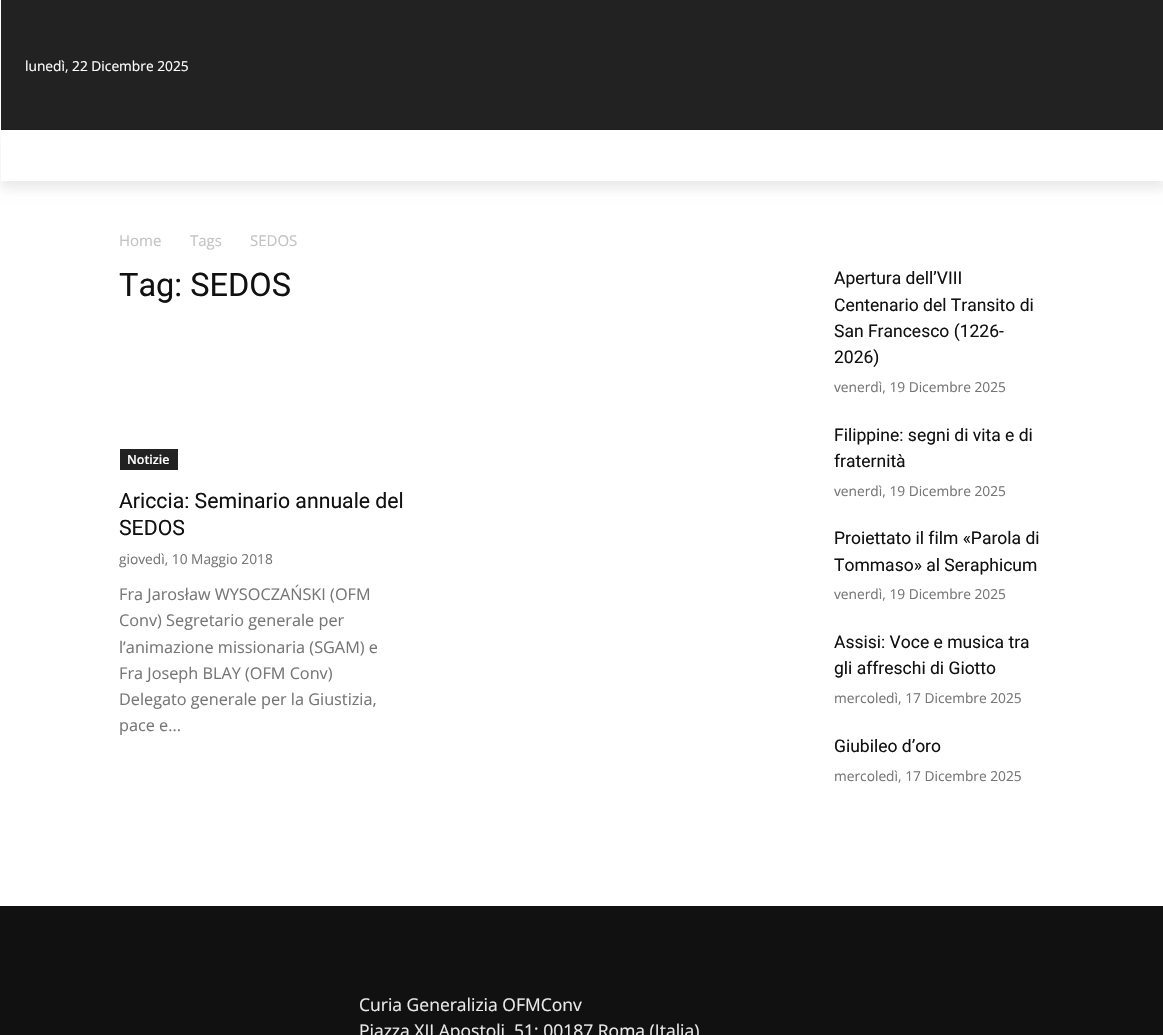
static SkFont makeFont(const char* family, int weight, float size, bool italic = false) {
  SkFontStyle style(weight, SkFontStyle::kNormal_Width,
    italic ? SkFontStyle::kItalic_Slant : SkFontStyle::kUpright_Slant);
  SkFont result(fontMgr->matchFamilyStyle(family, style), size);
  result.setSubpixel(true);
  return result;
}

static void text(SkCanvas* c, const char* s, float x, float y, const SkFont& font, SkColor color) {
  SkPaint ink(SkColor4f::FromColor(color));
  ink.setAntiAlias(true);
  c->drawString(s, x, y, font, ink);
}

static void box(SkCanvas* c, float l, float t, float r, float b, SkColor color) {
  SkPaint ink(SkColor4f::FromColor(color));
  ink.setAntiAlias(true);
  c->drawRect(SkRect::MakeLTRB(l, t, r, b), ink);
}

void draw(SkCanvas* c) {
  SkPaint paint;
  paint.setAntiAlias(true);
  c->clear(0xffffffff);
  box(c, 1, 0, 1163, 130, 0xff222222);
  SkFont face1 = makeFont("Open Sans", 400, 13.75f);
  text(c, "lunedì, 22 Dicembre 2025", 25, 71, face1, 0xffffffff);
  c->save();
  c->clipPath(SkPathBuilder(SkPathFillType::kEvenOdd).moveTo(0, 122).lineTo(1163, 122).lineTo(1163, 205).lineTo(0, 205).close().moveTo(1, 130).lineTo(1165, 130).lineTo(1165, 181).lineTo(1, 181).close().detach(), true);
  paint.setColor(0x14000000);
  paint.setMaskFilter(SkMaskFilter::MakeBlur(kNormal_SkBlurStyle, 5));
  c->drawRect(SkRect::MakeLTRB(1, 138, 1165, 189), paint);
  paint.setMaskFilter(nullptr);
  c->restore();
  SkFont face2 = makeFont("Open Sans", 400, 15);
  text(c, "Home", 119, 246, face2, 0xffc3c3c3);
  text(c, "Tags", 190, 246, face2, 0xffc3c3c3);
  text(c, "SEDOS", 250, 246, face2, 0xffc3c3c3);
  SkFont face3 = makeFont("Roboto", 400, 32.5f);
  text(c, "Tag: SEDOS", 119, 296, face3, 0xff111111);
  box(c, 120, 449, 178, 470, 0xff222222);
  SkFont face4 = makeFont("Open Sans", 600, 12.5f);
  text(c, "Notizie", 127, 464, face4, 0xffffffff);
  SkFont face5 = makeFont("Roboto", 400, 21.25f);
  text(c, "Ariccia: Seminario annuale del", 119, 508, face5, 0xff111111);
  text(c, "SEDOS", 119, 535, face5, 0xff111111);
  text(c, "giovedì, 10 Maggio 2018", 119, 564, face1, 0xff767676);
  SkFont face6 = makeFont("Open Sans", 400, 16.25f);
  text(c, "Fra Jarosław WYSOCZAŃSKI (OFM", 119, 600, face6, 0xff767676);
  text(c, "Conv) Segretario generale per", 119, 626, face6, 0xff767676);
  text(c, "l’animazione missionaria (SGAM) e", 119, 653, face6, 0xff767676);
  text(c, "Fra Joseph BLAY (OFM Conv)", 119, 679, face6, 0xff767676);
  text(c, "Delegato generale per la Giustizia,", 119, 705, face6, 0xff767676);
  text(c, "pace e...", 119, 731, face6, 0xff767676);
  SkFont face7 = makeFont("Roboto", 400, 17.5f);
  text(c, "Apertura dell’VIII", 834, 284, face7, 0xff111111);
  text(c, "Centenario del Transito di", 834, 311, face7, 0xff111111);
  text(c, "San Francesco (1226-", 834, 337, face7, 0xff111111);
  text(c, "2026)", 834, 363, face7, 0xff111111);
  text(c, "venerdì, 19 Dicembre 2025", 834, 392, face1, 0xff767676);
  text(c, "Filippine: segni di vita e di", 834, 441, face7, 0xff111111);
  text(c, "fraternità", 834, 467, face7, 0xff111111);
  text(c, "venerdì, 19 Dicembre 2025", 834, 496, face1, 0xff767676);
  text(c, "Proiettato il film «Parola di", 834, 544, face7, 0xff111111);
  text(c, "Tommaso» al Seraphicum", 834, 571, face7, 0xff111111);
  text(c, "venerdì, 19 Dicembre 2025", 834, 599, face1, 0xff767676);
  text(c, "Assisi: Voce e musica tra", 834, 648, face7, 0xff111111);
  text(c, "gli affreschi di Giotto", 834, 674, face7, 0xff111111);
  text(c, "mercoledì, 17 Dicembre 2025", 834, 703, face1, 0xff767676);
  text(c, "Giubileo d’oro", 834, 752, face7, 0xff111111);
  text(c, "mercoledì, 17 Dicembre 2025", 834, 781, face1, 0xff767676);
  box(c, 0, 906, 1163, 1035, 0xff111111);
  SkFont face8 = makeFont("Open Sans", 400, 17.5f);
  text(c, "Curia Generalizia OFMConv", 359, 1011, face8, 0xffeaeaea);
  text(c, "Piazza XII Apostoli, 51; 00187 Roma (Italia)", 359, 1037, face8, 0xffeaeaea);
}
